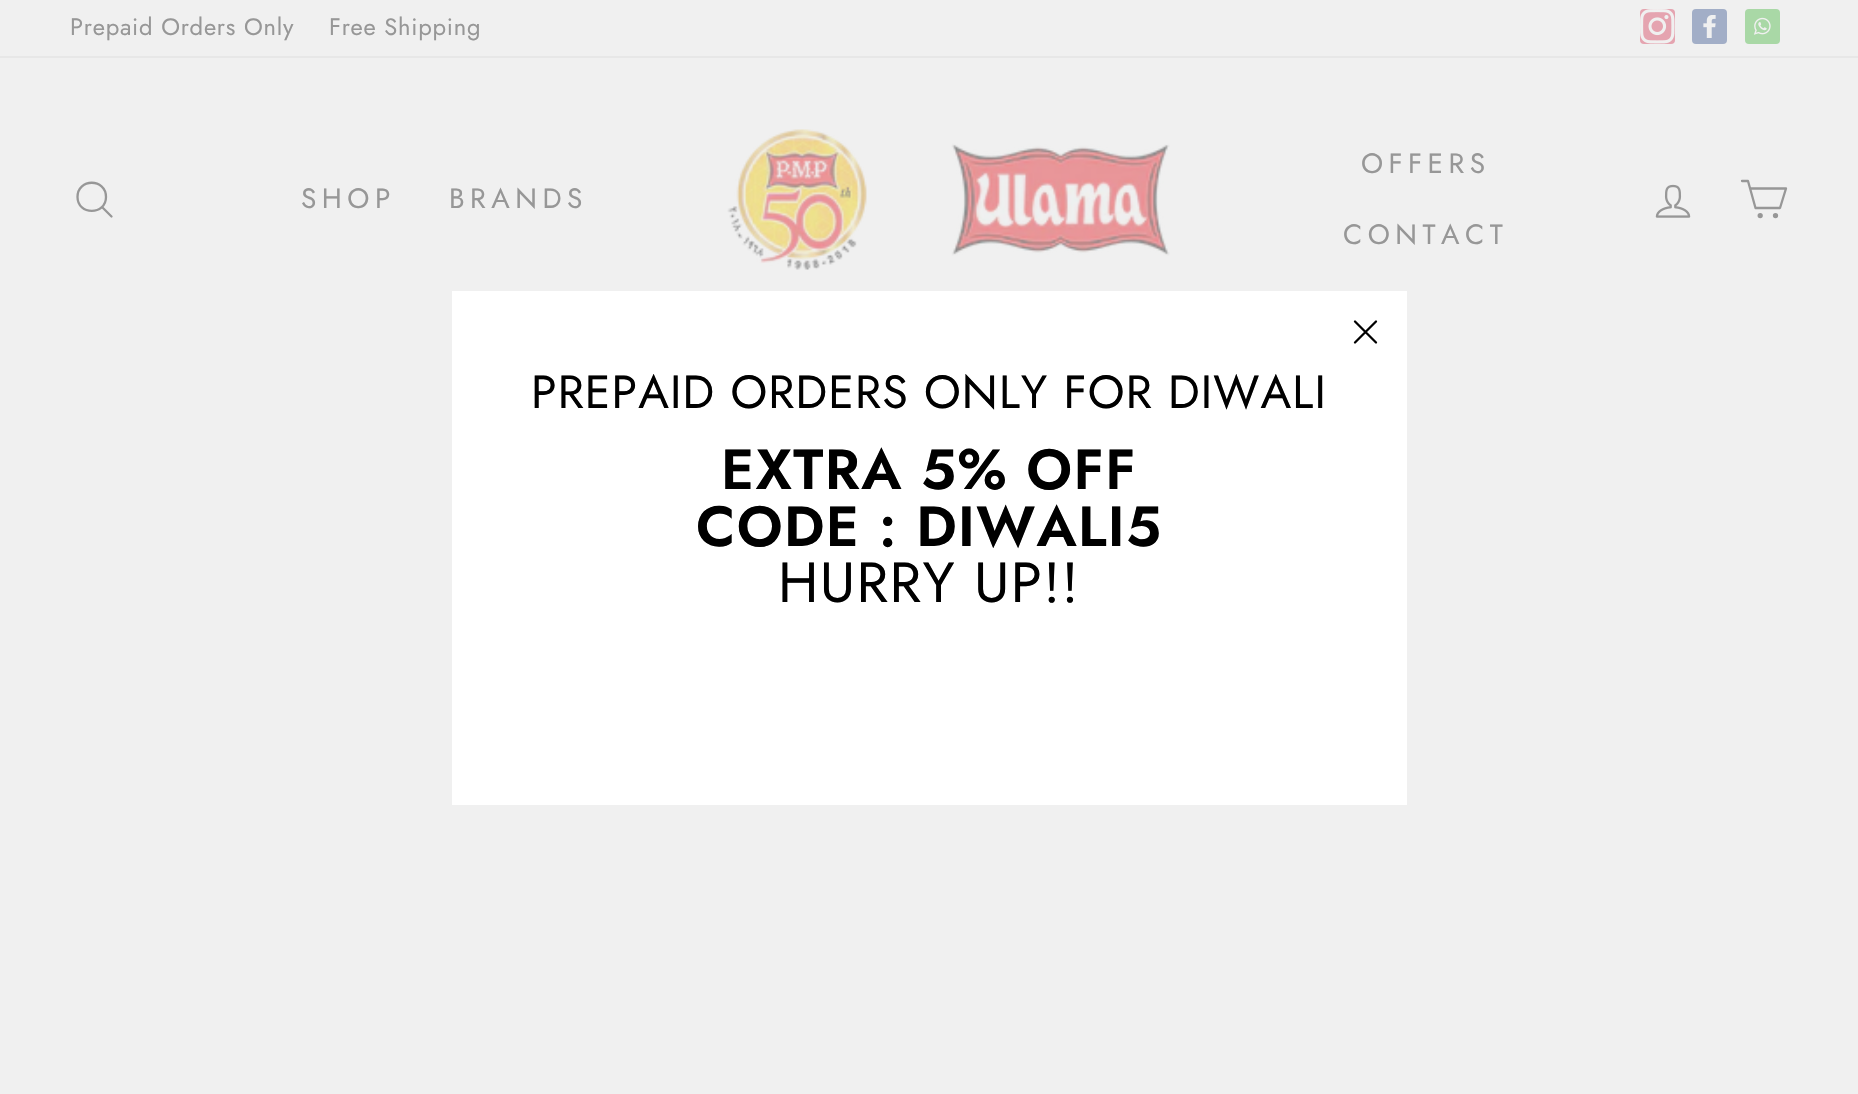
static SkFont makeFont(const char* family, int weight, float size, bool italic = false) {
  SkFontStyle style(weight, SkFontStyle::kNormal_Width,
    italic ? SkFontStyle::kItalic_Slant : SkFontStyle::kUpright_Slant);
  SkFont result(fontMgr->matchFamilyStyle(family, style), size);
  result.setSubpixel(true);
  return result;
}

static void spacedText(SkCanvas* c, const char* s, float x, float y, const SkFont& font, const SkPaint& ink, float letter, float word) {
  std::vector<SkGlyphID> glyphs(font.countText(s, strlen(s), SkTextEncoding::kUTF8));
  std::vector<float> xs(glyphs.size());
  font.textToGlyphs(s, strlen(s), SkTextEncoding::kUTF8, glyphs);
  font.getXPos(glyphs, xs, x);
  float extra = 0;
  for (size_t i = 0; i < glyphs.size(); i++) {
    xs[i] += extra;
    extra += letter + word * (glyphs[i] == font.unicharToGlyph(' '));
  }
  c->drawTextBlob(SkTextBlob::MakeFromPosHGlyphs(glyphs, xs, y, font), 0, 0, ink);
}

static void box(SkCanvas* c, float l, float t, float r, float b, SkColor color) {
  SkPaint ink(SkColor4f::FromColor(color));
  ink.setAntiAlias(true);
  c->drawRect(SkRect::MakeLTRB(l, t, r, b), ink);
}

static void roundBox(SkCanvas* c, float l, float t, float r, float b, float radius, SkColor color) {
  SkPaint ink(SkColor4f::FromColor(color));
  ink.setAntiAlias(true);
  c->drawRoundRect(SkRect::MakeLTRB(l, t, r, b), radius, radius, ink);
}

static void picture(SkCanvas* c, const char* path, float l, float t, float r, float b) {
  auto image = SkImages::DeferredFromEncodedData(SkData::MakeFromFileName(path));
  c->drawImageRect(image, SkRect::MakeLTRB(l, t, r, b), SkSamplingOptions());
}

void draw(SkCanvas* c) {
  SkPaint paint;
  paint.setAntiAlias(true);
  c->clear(0xfff0f0f0);
  SkFont face1 = makeFont("Jost", 400, 23.75f);
  paint.setColor(0xff979797);
  spacedText(c, "Prepaid Orders Only", 70, 35, face1, paint, 0.75f, 0);
  spacedText(c, "Free Shipping", 329, 35, face1, paint, 0.75f, 0);
  roundBox(c, 1640, 9, 1675, 44, 4, 0xffe5a4b0);
  picture(c, "img_01.png", 1640, 9, 1675, 44);
  roundBox(c, 1692, 9, 1727, 44, 4, 0xffa2aec7);
  picture(c, "img_02.png", 1703, 15, 1716, 38);
  roundBox(c, 1745, 9, 1780, 44, 4, 0xffa9d8a6);
  picture(c, "img_03.png", 1753, 17, 1771, 35);
  box(c, 0, 56, 1858, 58, 0xffe7e7e7);
  paint.setStyle(SkPaint::kStroke_Style);
  paint.setStrokeWidth(2.3f);
  paint.setStrokeCap(SkPaint::kRound_Cap);
  paint.setStrokeJoin(SkPaint::kRound_Join);
  c->drawPath(SkPathBuilder().moveTo(106, 197).cubicTo(106, 215.5f, 77.5f, 215.5f, 77.5f, 197).cubicTo(77.5f, 178, 106, 178, 106, 197).close().moveTo(111.5f, 216.5f).lineTo(102, 207).detach(), paint);
  SkFont face2 = makeFont("Jost", 400, 28);
  paint.setStyle(SkPaint::kFill_Style);
  spacedText(c, "SHOP", 301, 208, face2, paint, 5.5f, 0);
  spacedText(c, "BRANDS", 449, 208, face2, paint, 5.5f, 0);
  picture(c, "img_04.png", 727, 129, 867, 270);
  picture(c, "img_05.png", 951, 143, 1170, 256);
  spacedText(c, "OFFERS", 1361, 173, face2, paint, 5.5f, 0);
  spacedText(c, "CONTACT", 1343, 244, face2, paint, 5.5f, 0);
  picture(c, "img_06.png", 1655, 184, 1691, 218);
  paint.setStyle(SkPaint::kStroke_Style);
  c->drawPath(SkPathBuilder().moveTo(1750, 188.5f).lineTo(1786, 188.5f).lineTo(1780, 208).lineTo(1755.5f, 208).lineTo(1748, 181).lineTo(1742, 181).detach(), paint);
  paint.setStyle(SkPaint::kFill_Style);
  c->drawCircle(1760.2f, 215.6f, 1.5f, paint);
  paint.setStyle(SkPaint::kStroke_Style);
  paint.setStrokeCap(SkPaint::kButt_Cap);
  paint.setStrokeJoin(SkPaint::kMiter_Join);
  c->drawCircle(1760.2f, 215.6f, 1.5f, paint);
  paint.setStyle(SkPaint::kFill_Style);
  c->drawCircle(1775.5f, 215.6f, 1.5f, paint);
  paint.setStyle(SkPaint::kStroke_Style);
  c->drawCircle(1775.5f, 215.6f, 1.5f, paint);
  box(c, 452, 291, 1407, 805, 0xffffffff);
  paint.setStrokeCap(SkPaint::kRound_Cap);
  paint.setStrokeJoin(SkPaint::kRound_Join);
  paint.setColor(0xff000000);
  c->drawPath(SkPathBuilder().moveTo(1355, 321.5f).lineTo(1376, 342.5f).moveTo(1376, 321.5f).lineTo(1355, 342.5f).detach(), paint);
  SkFont face3 = makeFont("Jost", 400, 46.5f);
  paint.setStyle(SkPaint::kFill_Style);
  spacedText(c, "PREPAID ORDERS ONLY FOR DIWALI", 531, 408, face3, paint, 1.15f, 0);
  SkFont face4 = makeFont("Jost", 600, 56.5f);
  spacedText(c, "EXTRA 5% OFF", 721, 489, face4, paint, 1.4f, 0);
  spacedText(c, "CODE : DIWALI5", 696, 546, face4, paint, 1.4f, 0);
  SkFont face5 = makeFont("Jost", 400, 56.5f);
  spacedText(c, "HURRY UP!!", 778, 602, face5, paint, 1.4f, 0);
}
